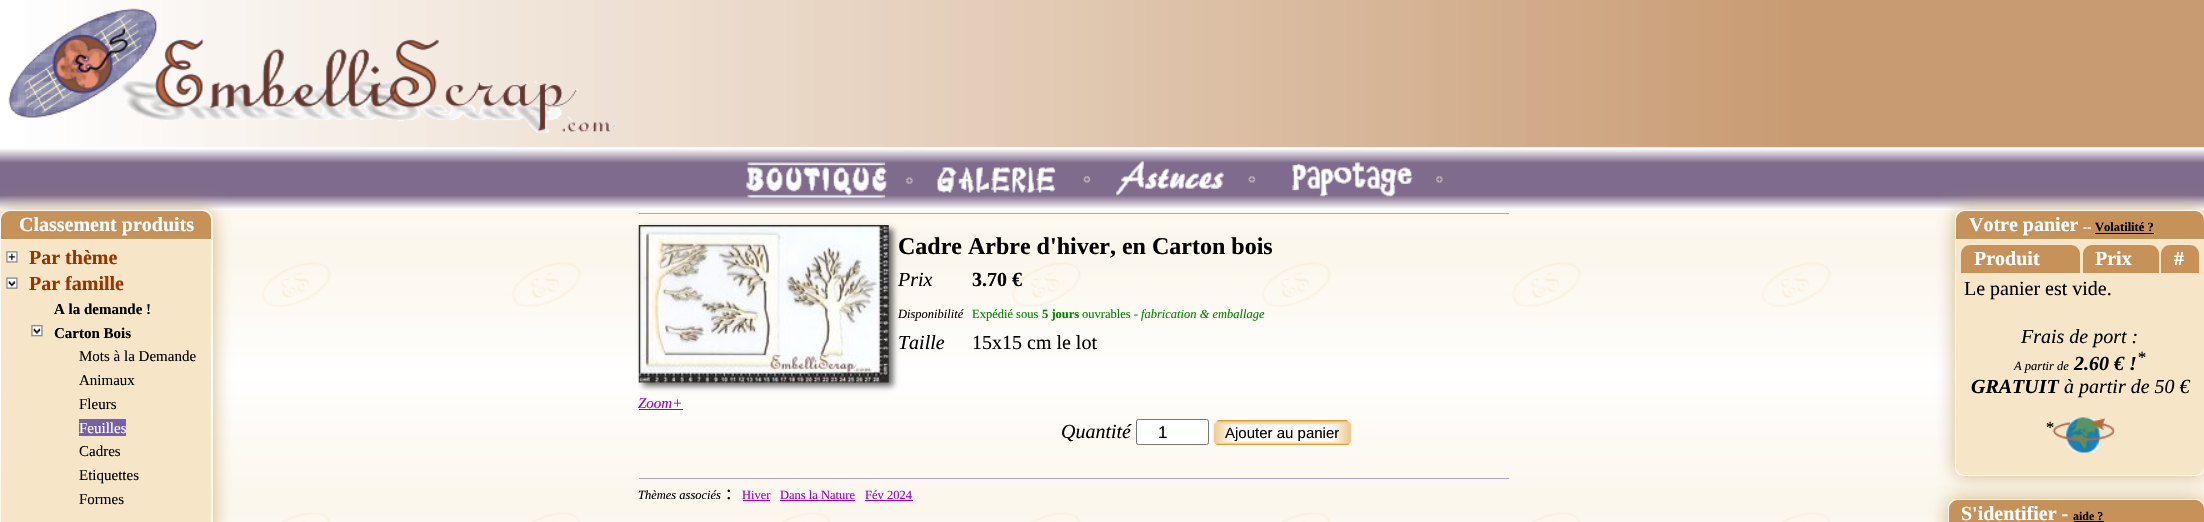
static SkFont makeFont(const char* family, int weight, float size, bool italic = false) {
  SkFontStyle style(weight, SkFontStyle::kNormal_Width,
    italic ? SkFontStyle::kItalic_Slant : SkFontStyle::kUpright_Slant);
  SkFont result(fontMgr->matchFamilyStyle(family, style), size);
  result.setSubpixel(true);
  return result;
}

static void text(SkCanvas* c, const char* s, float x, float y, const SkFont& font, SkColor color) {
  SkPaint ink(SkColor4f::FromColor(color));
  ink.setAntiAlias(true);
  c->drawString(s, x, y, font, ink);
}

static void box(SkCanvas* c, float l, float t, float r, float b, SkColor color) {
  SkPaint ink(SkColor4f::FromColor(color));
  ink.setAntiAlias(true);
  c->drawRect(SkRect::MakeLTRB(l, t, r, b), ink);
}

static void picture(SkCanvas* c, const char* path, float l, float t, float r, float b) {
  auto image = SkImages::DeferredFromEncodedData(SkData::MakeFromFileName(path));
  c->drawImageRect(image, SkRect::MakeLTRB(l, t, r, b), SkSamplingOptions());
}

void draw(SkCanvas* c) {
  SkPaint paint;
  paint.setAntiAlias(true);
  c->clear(0xffffffff);
  picture(c, "img_01.png", 0, 147, 2204, 522);
  picture(c, "img_02.png", 0, 0, 2204, 148);
  picture(c, "img_03.png", 8, 8, 615, 133);
  picture(c, "img_04.png", 0, 147, 2204, 210);
  picture(c, "img_05.png", 746, 162, 913, 198);
  picture(c, "img_06.png", 937, 167, 1091, 193);
  picture(c, "img_07.png", 1116, 161, 1256, 196);
  picture(c, "img_08.png", 1292, 162, 1443, 197);
  c->save();
  c->clipPath(SkPathBuilder(SkPathFillType::kEvenOdd).moveTo(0, 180).lineTo(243, 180).lineTo(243, 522).lineTo(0, 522).close().moveTo(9, 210).lineTo(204, 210).cubicTo(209, 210, 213, 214, 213, 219).lineTo(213, 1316).cubicTo(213, 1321, 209, 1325, 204, 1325).lineTo(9, 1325).cubicTo(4, 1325, 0, 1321, 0, 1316).lineTo(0, 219).cubicTo(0, 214, 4, 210, 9, 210).close().detach(), true);
  paint.setColor(0xe6ccae76);
  paint.setMaskFilter(SkMaskFilter::MakeBlur(kNormal_SkBlurStyle, 9.5f));
  c->drawRoundRect(SkRect::MakeLTRB(0, 210, 213, 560), 9, 9, paint);
  paint.setMaskFilter(nullptr);
  c->restore();
  paint.setColor(0xffc7915a);
  c->drawPath(SkPathBuilder().moveTo(10, 211).lineTo(202, 211).cubicTo(207, 211, 211, 215, 211, 220).lineTo(211, 239).lineTo(1, 239).lineTo(1, 220).cubicTo(1, 215, 5, 211, 10, 211).close().detach(), paint);
  SkFont face1 = makeFont("Liberation Serif", 700, 20);
  text(c, "Classement produits", 19, 231, face1, 0xffffffff);
  box(c, 1, 240, 211, 522, 0xfff6e5c6);
  picture(c, "img_09.png", 6, 251, 18, 263);
  text(c, "Par thème", 29, 264, face1, 0xff993300);
  picture(c, "img_10.png", 6, 277, 18, 289);
  text(c, "Par famille", 29, 290, face1, 0xff993300);
  SkFont face2 = makeFont("Liberation Serif", 700, 15);
  text(c, "A la demande !", 54, 314, face2, 0xff000000);
  picture(c, "img_11.png", 31, 324, 43, 337);
  text(c, "Carton Bois", 54, 338, face2, 0xff000000);
  SkFont face3 = makeFont("Liberation Serif", 400, 15);
  text(c, "Mots à la Demande", 79, 361, face3, 0xff000000);
  text(c, "Animaux", 79, 385, face3, 0xff000000);
  text(c, "Fleurs", 79, 409, face3, 0xff000000);
  box(c, 79, 419, 126, 436, 0xff7561a3);
  text(c, "Feuilles", 79, 433, face3, 0xffffffff);
  text(c, "Cadres", 79, 456, face3, 0xff000000);
  text(c, "Etiquettes", 79, 480, face3, 0xff000000);
  text(c, "Formes", 79, 504, face3, 0xff000000);
  box(c, 639, 213, 1509, 214, 0xffada2c8);
  paint.setColor(0x99000000);
  paint.setMaskFilter(SkMaskFilter::MakeBlur(kNormal_SkBlurStyle, 3));
  c->drawRect(SkRect::MakeLTRB(643, 229, 893, 386), paint);
  paint.setMaskFilter(nullptr);
  picture(c, "img_12.png", 638, 225, 889, 383);
  SkFont face4 = makeFont("Liberation Serif", 700, 24);
  text(c, "Cadre Arbre d'hiver, en Carton bois", 898, 254, face4, 0xff000000);
  SkFont face5 = makeFont("Liberation Serif", 400, 20, true);
  text(c, "Prix", 898, 286, face5, 0xff000000);
  text(c, "3.70 €", 972, 286, face1, 0xff000000);
  SkFont face6 = makeFont("Liberation Serif", 400, 12.5f, true);
  text(c, "Disponibilité", 898, 318, face6, 0xff000000);
  SkFont face7 = makeFont("Liberation Serif", 400, 12.5f);
  text(c, "Expédié sous", 972, 318, face7, 0xff008000);
  SkFont face8 = makeFont("Liberation Serif", 700, 12.5f);
  text(c, "5 jours", 1042, 318, face8, 0xff008000);
  text(c, "ouvrables -", 1082, 318, face7, 0xff008000);
  text(c, "fabrication & emballage", 1141, 318, face6, 0xff008000);
  text(c, "Taille", 898, 349, face5, 0xff000000);
  SkFont face9 = makeFont("Liberation Serif", 400, 20);
  text(c, "15x15 cm le lot", 972, 349, face9, 0xff000000);
  SkFont face10 = makeFont("Liberation Serif", 400, 15, true);
  text(c, "Zoom+", 638, 408, face10, 0xff9900cc);
  box(c, 639, 409, 683, 410, 0xff9900cc);
  text(c, "Quantité", 1061, 438, face5, 0xff000000);
  paint.setColor(0xffffffff);
  c->drawRoundRect(SkRect::MakeLTRB(1136.5f, 419.5f, 1208.5f, 444.5f), 2, 2, paint);
  paint.setStyle(SkPaint::kStroke_Style);
  paint.setStrokeWidth(1);
  paint.setColor(0xff767676);
  c->drawRoundRect(SkRect::MakeLTRB(1136.5f, 419.5f, 1208.5f, 444.5f), 2, 2, paint);
  SkFont face11 = makeFont("Liberation Sans", 400, 17);
  text(c, "1", 1158, 438, face11, 0xff000000);
  picture(c, "img_13.png", 1213, 420, 1352, 445);
  SkFont face12 = makeFont("Liberation Sans", 400, 15);
  text(c, "Ajouter au panier", 1225, 438, face12, 0xff000000);
  box(c, 639, 478, 1509, 479, 0xffada2c8);
  text(c, "Thèmes associés", 638, 499, face6, 0xff000000);
  text(c, ":", 726, 499, face9, 0xff000000);
  text(c, "Hiver", 742, 499, face7, 0xff9900cc);
  box(c, 743, 500, 770, 501, 0xff9900cc);
  text(c, "Dans la Nature", 780, 499, face7, 0xff9900cc);
  box(c, 780, 500, 855, 501, 0xff9900cc);
  text(c, "Fév 2024", 865, 499, face7, 0xff9900cc);
  box(c, 865, 500, 913, 501, 0xff9900cc);
  c->save();
  c->clipPath(SkPathBuilder(SkPathFillType::kEvenOdd).moveTo(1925, 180).lineTo(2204, 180).lineTo(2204, 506).lineTo(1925, 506).close().moveTo(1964, 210).lineTo(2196, 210).cubicTo(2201, 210, 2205, 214, 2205, 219).lineTo(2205, 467).cubicTo(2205, 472, 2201, 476, 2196, 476).lineTo(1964, 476).cubicTo(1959, 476, 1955, 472, 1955, 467).lineTo(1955, 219).cubicTo(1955, 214, 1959, 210, 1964, 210).close().detach(), true);
  paint.setStyle(SkPaint::kFill_Style);
  paint.setColor(0xe6ccae76);
  paint.setMaskFilter(SkMaskFilter::MakeBlur(kNormal_SkBlurStyle, 9.5f));
  c->drawRoundRect(SkRect::MakeLTRB(1955, 210, 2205, 476), 9, 9, paint);
  paint.setMaskFilter(nullptr);
  c->restore();
  paint.setColor(0xffc7915a);
  c->drawPath(SkPathBuilder().moveTo(1965, 211).lineTo(2195, 211).cubicTo(2200, 211, 2204, 215, 2204, 220).lineTo(2204, 239).lineTo(1956, 239).lineTo(1956, 220).cubicTo(1956, 215, 1960, 211, 1965, 211).close().detach(), paint);
  text(c, "Votre panier", 1969, 231, face1, 0xffffffff);
  text(c, "--", 2083, 231, face8, 0xffffffff);
  text(c, "Volatilité ?", 2095, 231, face8, 0xff000000);
  box(c, 2095, 233, 2154, 234, 0xff000000);
  paint.setColor(0xfff6e5c6);
  c->drawPath(SkPathBuilder().moveTo(1956, 240).lineTo(2204, 240).lineTo(2204, 466).cubicTo(2204, 471, 2200, 475, 2195, 475).lineTo(1965, 475).cubicTo(1960, 475, 1956, 471, 1956, 466).close().detach(), paint);
  paint.setColor(0xffc7915a);
  c->drawPath(SkPathBuilder().moveTo(1970, 245).lineTo(2071, 245).cubicTo(2076, 245, 2080, 249, 2080, 254).lineTo(2080, 273).lineTo(1961, 273).lineTo(1961, 254).cubicTo(1961, 249, 1965, 245, 1970, 245).close().detach(), paint);
  text(c, "Produit", 1974, 265, face1, 0xffffffff);
  c->drawPath(SkPathBuilder().moveTo(2092, 245).lineTo(2150, 245).cubicTo(2155, 245, 2159, 249, 2159, 254).lineTo(2159, 273).lineTo(2083, 273).lineTo(2083, 254).cubicTo(2083, 249, 2087, 245, 2092, 245).close().detach(), paint);
  text(c, "Prix", 2095, 265, face1, 0xffffffff);
  c->drawPath(SkPathBuilder().moveTo(2170, 245).lineTo(2190, 245).cubicTo(2195, 245, 2199, 249, 2199, 254).lineTo(2199, 273).lineTo(2161, 273).lineTo(2161, 254).cubicTo(2161, 249, 2165, 245, 2170, 245).close().detach(), paint);
  text(c, "#", 2174, 265, face1, 0xffffffff);
  text(c, "Le panier est vide.", 1964, 295, face9, 0xff000000);
  text(c, "Frais de port :", 2021, 343, face5, 0xff000000);
  text(c, "A partir de", 2014, 370, face6, 0xff000000);
  SkFont face13 = makeFont("Liberation Serif", 700, 20, true);
  text(c, "2.60 € !", 2074, 370, face13, 0xff000000);
  SkFont face14 = makeFont("Liberation Serif", 400, 17, true);
  text(c, "*", 2137, 363, face14, 0xff000000);
  text(c, "GRATUIT", 1971, 393, face13, 0xff000000);
  text(c, "à partir de 50 €", 2064, 393, face5, 0xff000000);
  text(c, "*", 2045, 433, face14, 0xff000000);
  picture(c, "img_14.png", 2052, 417, 2115, 453);
  c->save();
  c->clipPath(SkPathBuilder(SkPathFillType::kEvenOdd).moveTo(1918, 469).lineTo(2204, 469).lineTo(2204, 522).lineTo(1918, 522).close().moveTo(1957, 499).lineTo(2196, 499).cubicTo(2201, 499, 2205, 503, 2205, 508).lineTo(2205, 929).cubicTo(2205, 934, 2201, 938, 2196, 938).lineTo(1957, 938).cubicTo(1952, 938, 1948, 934, 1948, 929).lineTo(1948, 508).cubicTo(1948, 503, 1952, 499, 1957, 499).close().detach(), true);
  paint.setColor(0xe6ccae76);
  paint.setMaskFilter(SkMaskFilter::MakeBlur(kNormal_SkBlurStyle, 9.5f));
  c->drawRoundRect(SkRect::MakeLTRB(1948, 499, 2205, 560), 9, 9, paint);
  paint.setMaskFilter(nullptr);
  c->restore();
  paint.setColor(0xffc7915a);
  c->drawPath(SkPathBuilder().moveTo(1958, 500).lineTo(2195, 500).cubicTo(2200, 500, 2204, 504, 2204, 509).lineTo(2204, 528).lineTo(1949, 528).lineTo(1949, 509).cubicTo(1949, 504, 1953, 500, 1958, 500).close().detach(), paint);
  text(c, "S'identifier -", 1961, 520, face1, 0xffffffff);
  SkFont face15 = makeFont("Liberation Serif", 700, 12);
  text(c, "aide ?", 2073, 520, face15, 0xff000000);
  box(c, 2074, 521, 2104, 522, 0xff000000);
}
